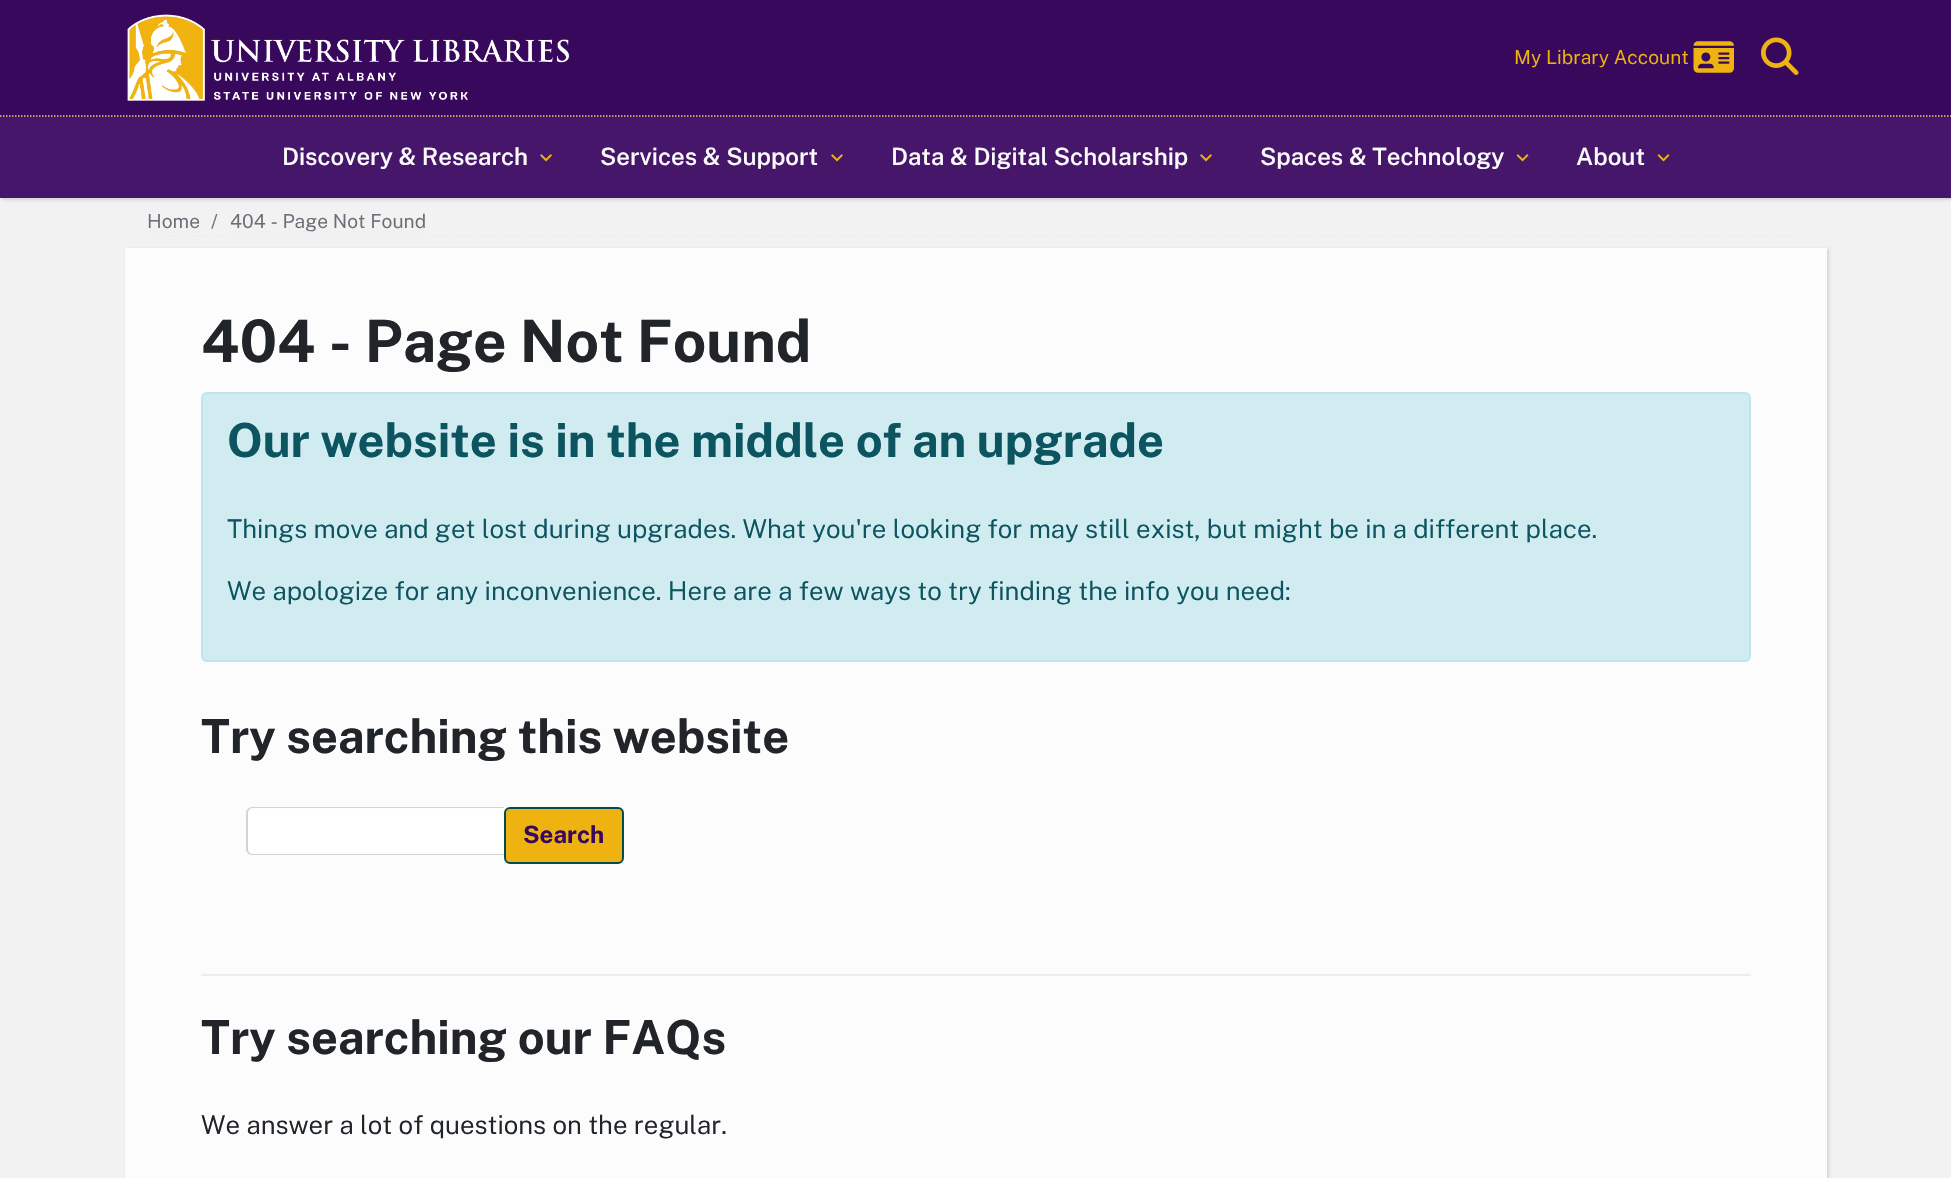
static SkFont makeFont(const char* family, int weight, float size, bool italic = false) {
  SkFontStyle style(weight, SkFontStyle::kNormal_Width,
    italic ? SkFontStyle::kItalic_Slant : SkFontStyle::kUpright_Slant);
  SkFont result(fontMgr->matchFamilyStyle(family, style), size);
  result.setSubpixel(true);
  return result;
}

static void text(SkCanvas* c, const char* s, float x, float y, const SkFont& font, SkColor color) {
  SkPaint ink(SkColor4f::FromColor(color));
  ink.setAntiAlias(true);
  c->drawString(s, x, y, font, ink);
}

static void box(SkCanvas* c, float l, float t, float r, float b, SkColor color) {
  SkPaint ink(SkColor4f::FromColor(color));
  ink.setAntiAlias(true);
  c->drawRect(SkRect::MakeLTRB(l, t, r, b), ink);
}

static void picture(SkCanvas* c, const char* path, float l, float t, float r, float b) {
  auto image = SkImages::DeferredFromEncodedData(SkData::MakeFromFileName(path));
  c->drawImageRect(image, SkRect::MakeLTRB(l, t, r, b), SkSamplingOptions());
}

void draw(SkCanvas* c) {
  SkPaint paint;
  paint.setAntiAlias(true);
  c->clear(0xff37085b);
  paint.setStyle(SkPaint::kStroke_Style);
  paint.setStrokeWidth(1.5f);
  paint.setColor(0xfff3cf6d);
  paint.setPathEffect(SkDashPathEffect::Make({{1.5f, 1.5f}}, 0));
  c->drawPath(SkPathBuilder().moveTo(0, 116).lineTo(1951.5f, 116).detach(), paint);
  paint.setPathEffect(nullptr);
  picture(c, "img_01.png", 127, 14, 570, 101);
  SkFont face1 = makeFont("Public Sans", 300, 19.25f);
  text(c, "My Library Account", 1514, 64, face1, 0xffeeb311);
  picture(c, "img_02.png", 1693, 41, 1734, 73);
  picture(c, "img_03.png", 1761, 37, 1799, 75);
  box(c, 0, 198, 1951, 1178, 0xfff2f2f2);
  paint.setStyle(SkPaint::kFill_Style);
  paint.setColor(0x1f000000);
  paint.setMaskFilter(SkMaskFilter::MakeBlur(kNormal_SkBlurStyle, 1.5f));
  c->drawRect(SkRect::MakeLTRB(2, 119, 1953, 200), paint);
  paint.setMaskFilter(nullptr);
  box(c, 0, 117, 1951, 198, 0xff45166a);
  SkFont face2 = makeFont("Public Sans", 500, 24);
  text(c, "Discovery & Research", 282, 165, face2, 0xfffcfcfc);
  picture(c, "img_04.png", 540, 154, 552, 162);
  text(c, "Services & Support", 600, 165, face2, 0xfffcfcfc);
  picture(c, "img_04.png", 831, 154, 843, 162);
  text(c, "Data & Digital Scholarship", 891, 165, face2, 0xfffcfcfc);
  picture(c, "img_04.png", 1200, 154, 1212, 162);
  text(c, "Spaces & Technology", 1260, 165, face2, 0xfffcfcfc);
  picture(c, "img_05.png", 1516, 154, 1529, 162);
  text(c, "About", 1576, 165, face2, 0xfffcfcfc);
  picture(c, "img_05.png", 1657, 154, 1670, 162);
  paint.setStyle(SkPaint::kStroke_Style);
  paint.setColor(0xffededed);
  paint.setPathEffect(SkDashPathEffect::Make({{1.5f, 1.5f}}, 0));
  c->drawPath(SkPathBuilder().moveTo(147, 236).lineTo(1804.5f, 236).detach(), paint);
  paint.setPathEffect(nullptr);
  text(c, "Home", 147, 228, face1, 0xff6d6d78);
  paint.setPathEffect(SkDashPathEffect::Make({{1.5f, 1.5f}}, 0));
  c->drawPath(SkPathBuilder().moveTo(146.5f, 232).lineTo(199.5f, 232).detach(), paint);
  paint.setPathEffect(nullptr);
  text(c, "/", 211, 228, face1, 0xff6c757d);
  paint.setPathEffect(SkDashPathEffect::Make({{1.5f, 1.5f}}, 0));
  c->drawPath(SkPathBuilder().moveTo(230, 232).lineTo(425.5f, 232).detach(), paint);
  paint.setPathEffect(nullptr);
  text(c, "404 - Page Not Found", 230, 228, face1, 0xff6d6d78);
  paint.setStyle(SkPaint::kFill_Style);
  paint.setColor(0x1f000000);
  paint.setMaskFilter(SkMaskFilter::MakeBlur(kNormal_SkBlurStyle, 1.5f));
  c->drawRect(SkRect::MakeLTRB(126, 249, 1829, 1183), paint);
  paint.setMaskFilter(nullptr);
  box(c, 125, 248, 1827, 1178, 0xfffcfcfc);
  SkFont face3 = makeFont("Public Sans", 700, 58.5f);
  text(c, "404 - Page Not Found", 201, 362, face3, 0xff212529);
  paint.setColor(0xffd1ecf1);
  c->drawRoundRect(SkRect::MakeLTRB(202, 393, 1750, 661), 5, 5, paint);
  paint.setStyle(SkPaint::kStroke_Style);
  paint.setStrokeWidth(2);
  paint.setColor(0xffbee5eb);
  c->drawRoundRect(SkRect::MakeLTRB(202, 393, 1750, 661), 5, 5, paint);
  SkFont face4 = makeFont("Public Sans", 700, 46.9f);
  text(c, "Our website is in the middle of an upgrade", 227, 457, face4, 0xff0c5460);
  SkFont face5 = makeFont("Public Sans", 300, 25.8f);
  text(c, "Things move and get lost during upgrades. What you're looking for may still exist, but might be in a different place.", 227, 538, face5, 0xff0c5460);
  text(c, "We apologize for any inconvenience. Here are a few ways to try finding the info you need:", 227, 600, face5, 0xff0c5460);
  text(c, "Try searching this website", 201, 753, face4, 0xff212529);
  paint.setStyle(SkPaint::kFill_Style);
  paint.setColor(0xffffffff);
  c->drawPath(SkPathBuilder().moveTo(253, 809).lineTo(504, 809).lineTo(504, 854).lineTo(253, 854).cubicTo(250, 854, 248, 852, 248, 849).lineTo(248, 814).cubicTo(248, 811, 250, 809, 253, 809).close().detach(), paint);
  paint.setColor(0xffced4da);
  c->drawPath(SkPathBuilder(SkPathFillType::kEvenOdd).moveTo(252, 807).lineTo(504, 807).lineTo(504, 855).lineTo(252, 855).cubicTo(249, 855, 246, 852, 246, 849).lineTo(246, 813).cubicTo(246, 810, 249, 807, 252, 807).close().moveTo(252, 808).lineTo(504, 808).lineTo(504, 854).lineTo(252, 854).cubicTo(250, 854, 248, 851, 248, 849).lineTo(248, 813).cubicTo(248, 811, 250, 808, 252, 808).close().detach(), paint);
  paint.setColor(0xffeeb311);
  c->drawRoundRect(SkRect::MakeLTRB(505, 808, 623, 863), 5, 5, paint);
  paint.setStyle(SkPaint::kStroke_Style);
  paint.setColor(0xff024c50);
  c->drawRoundRect(SkRect::MakeLTRB(505, 808, 623, 863), 5, 5, paint);
  SkFont face6 = makeFont("Public Sans", 700, 24);
  text(c, "Search", 523, 843, face6, 0xff37085b);
  box(c, 201, 974, 1751, 976, 0xffededed);
  text(c, "Try searching our FAQs", 201, 1054, face4, 0xff212529);
  text(c, "We answer a lot of questions on the regular.", 201, 1134, face5, 0xff212529);
}
